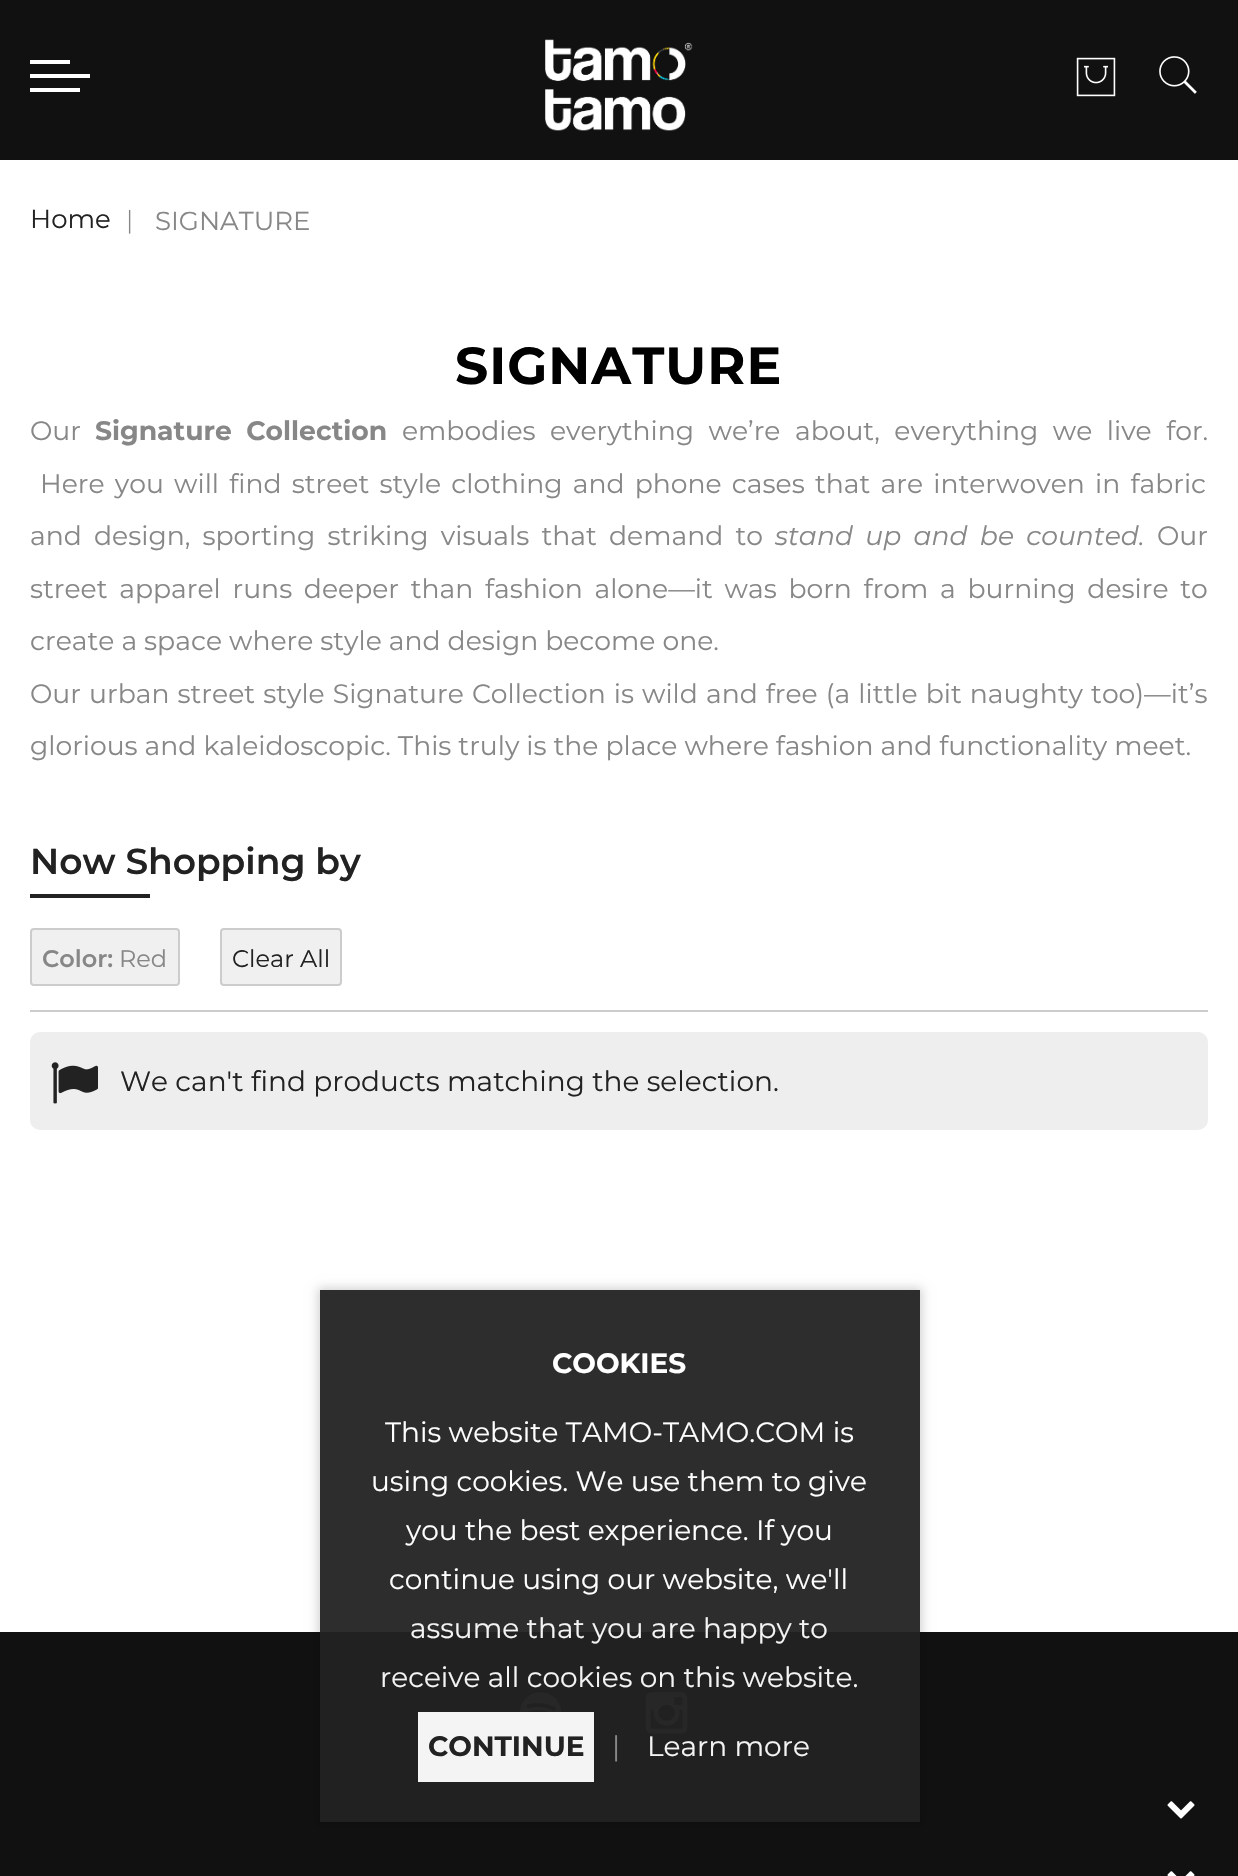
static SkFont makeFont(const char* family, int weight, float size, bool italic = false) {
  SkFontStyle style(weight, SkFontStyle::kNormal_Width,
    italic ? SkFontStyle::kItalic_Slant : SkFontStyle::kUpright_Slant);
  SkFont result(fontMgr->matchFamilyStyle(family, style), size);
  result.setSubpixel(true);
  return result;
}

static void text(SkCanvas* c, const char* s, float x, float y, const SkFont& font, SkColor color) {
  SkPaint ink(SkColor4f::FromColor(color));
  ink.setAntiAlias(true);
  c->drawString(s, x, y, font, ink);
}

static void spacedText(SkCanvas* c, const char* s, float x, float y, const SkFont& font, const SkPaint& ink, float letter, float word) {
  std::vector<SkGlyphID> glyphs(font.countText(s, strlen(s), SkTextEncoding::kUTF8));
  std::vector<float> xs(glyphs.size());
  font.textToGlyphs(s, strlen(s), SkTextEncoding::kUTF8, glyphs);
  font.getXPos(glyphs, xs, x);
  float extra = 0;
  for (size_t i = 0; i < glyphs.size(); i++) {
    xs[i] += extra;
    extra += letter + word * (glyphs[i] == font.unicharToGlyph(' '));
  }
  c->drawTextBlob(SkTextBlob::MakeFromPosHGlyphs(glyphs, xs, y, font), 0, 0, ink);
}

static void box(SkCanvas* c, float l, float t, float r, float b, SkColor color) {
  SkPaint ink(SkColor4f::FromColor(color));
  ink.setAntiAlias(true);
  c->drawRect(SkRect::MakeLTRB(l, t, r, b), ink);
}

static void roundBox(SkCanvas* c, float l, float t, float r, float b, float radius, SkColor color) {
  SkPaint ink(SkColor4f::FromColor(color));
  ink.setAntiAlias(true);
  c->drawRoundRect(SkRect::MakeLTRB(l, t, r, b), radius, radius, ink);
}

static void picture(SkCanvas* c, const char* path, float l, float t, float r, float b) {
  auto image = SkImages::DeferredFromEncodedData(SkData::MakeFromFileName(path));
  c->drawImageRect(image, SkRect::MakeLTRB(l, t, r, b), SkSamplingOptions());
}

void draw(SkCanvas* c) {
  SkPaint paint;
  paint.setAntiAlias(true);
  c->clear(0xffffffff);
  box(c, 320, 1290, 920, 1632, 0xff2d2d2d);
  box(c, 0, 0, 1238, 160, 0xff111111);
  box(c, 30, 60, 70, 64, 0xffffffff);
  box(c, 30, 74, 90, 78, 0xffffffff);
  box(c, 30, 88, 80, 92, 0xffffffff);
  picture(c, "img_01.png", 545, 39, 693, 131);
  picture(c, "img_02.png", 1076, 57, 1116, 97);
  picture(c, "img_03.png", 1159, 56, 1197, 94);
  SkFont face1 = makeFont("Montserrat", 400, 26);
  text(c, "Home", 30, 228, face1, 0xff222222);
  SkFont face2 = makeFont("Liberation Serif", 400, 26);
  text(c, "|", 127, 228, face2, 0xff878787);
  text(c, "SIGNATURE", 155, 230, face1, 0xff878787);
  SkFont face3 = makeFont("Montserrat", 700, 52);
  paint.setColor(0xff000000);
  spacedText(c, "SIGNATURE", 455, 384, face3, paint, 1, 0);
  SkFont face4 = makeFont("Montserrat", 400, 26.65f);
  text(c, "Our", 30, 440, face4, 0xff878787);
  SkFont face5 = makeFont("Montserrat", 700, 26.65f);
  paint.setColor(0xff878787);
  spacedText(c, "Signature Collection", 95, 440, face5, paint, 0, 7);
  spacedText(c, "embodies everything we’re about, everything we live for.", 402, 440, face4, paint, 0, 7.5f);
  spacedText(c, "Here you will find street style clothing and phone cases that are interwoven in fabric", 40, 493, face4, paint, 0, 3.25f);
  spacedText(c, "and design, sporting striking visuals that demand to", 30, 545, face4, paint, 0, 5.25f);
  SkFont face6 = makeFont("Montserrat", 400, 26.65f, true);
  spacedText(c, "stand up and be counted.", 775, 545, face6, paint, 0, 5.25f);
  text(c, "Our", 1157, 545, face4, 0xff878787);
  spacedText(c, "street apparel runs deeper than fashion alone—it was born from a burning desire to", 30, 598, face4, paint, 0, 4.75f);
  text(c, "create a space where style and design become one.", 30, 650, face4, 0xff878787);
  spacedText(c, "Our urban street style Signature Collection is wild and free (a little bit naughty too)—it’s", 30, 703, face4, paint, 0, 1.1f);
  text(c, "glorious and kaleidoscopic. This truly is the place where fashion and functionality meet.", 30, 755, face4, 0xff878787);
  box(c, 30, 1010, 1208, 1012, 0xffcccccc);
  SkFont face7 = makeFont("Montserrat", 600, 36);
  text(c, "Now Shopping by", 30, 874, face7, 0xff222222);
  box(c, 30, 894, 150, 898, 0xff222222);
  paint.setColor(0xfff0f0f0);
  c->drawRoundRect(SkRect::MakeLTRB(31, 929, 179, 985), 3, 3, paint);
  paint.setStyle(SkPaint::kStroke_Style);
  paint.setStrokeWidth(2);
  paint.setColor(0xffcccccc);
  c->drawRoundRect(SkRect::MakeLTRB(31, 929, 179, 985), 3, 3, paint);
  SkFont face8 = makeFont("Montserrat", 600, 24);
  text(c, "Color:", 42, 967, face8, 0xff878787);
  SkFont face9 = makeFont("Montserrat", 400, 24);
  text(c, "Red", 119, 967, face9, 0xff878787);
  paint.setStyle(SkPaint::kFill_Style);
  paint.setColor(0xfff0f0f0);
  c->drawRoundRect(SkRect::MakeLTRB(221, 929, 341, 985), 3, 3, paint);
  paint.setStyle(SkPaint::kStroke_Style);
  paint.setColor(0xffcccccc);
  c->drawRoundRect(SkRect::MakeLTRB(221, 929, 341, 985), 3, 3, paint);
  text(c, "Clear All", 232, 967, face9, 0xff222222);
  roundBox(c, 30, 1032, 1208, 1130, 10, 0xffeeeeee);
  picture(c, "img_04.png", 51, 1062, 98, 1104);
  SkFont face10 = makeFont("Montserrat", 400, 28);
  text(c, "We can't find products matching the selection.", 120, 1091, face10, 0xff222222);
  box(c, 0, 1632, 1238, 1876, 0xff111111);
  box(c, 320, 1632, 920, 1822, 0xff212121);
  picture(c, "img_05.png", 520, 1692, 562, 1734);
  picture(c, "img_06.png", 646, 1692, 688, 1734);
  picture(c, "img_07.png", 1167, 1801, 1195, 1819);
  picture(c, "img_08.png", 1167, 1871, 1195, 1876);
  c->save();
  c->clipPath(SkPathBuilder(SkPathFillType::kEvenOdd).moveTo(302, 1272).lineTo(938, 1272).lineTo(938, 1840).lineTo(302, 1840).close().moveTo(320, 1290).lineTo(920, 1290).lineTo(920, 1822).lineTo(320, 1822).close().detach(), true);
  paint.setStyle(SkPaint::kFill_Style);
  paint.setColor(0x2e000000);
  paint.setMaskFilter(SkMaskFilter::MakeBlur(kNormal_SkBlurStyle, 5));
  c->drawRect(SkRect::MakeLTRB(318, 1288, 922, 1824), paint);
  paint.setMaskFilter(nullptr);
  c->restore();
  SkFont face11 = makeFont("Montserrat", 700, 28);
  text(c, "COOKIES", 552, 1373, face11, 0xffffffff);
  text(c, "This website TAMO-TAMO.COM is", 385, 1442, face10, 0xffffffff);
  text(c, "using cookies. We use them to give", 371, 1491, face10, 0xffffffff);
  text(c, "you the best experience. If you", 406, 1540, face10, 0xffffffff);
  text(c, "continue using our website, we'll", 389, 1589, face10, 0xffffffff);
  text(c, "assume that you are happy to", 410, 1638, face10, 0xfff4f4f4);
  text(c, "receive all cookies on this website.", 380, 1687, face10, 0xfff4f4f4);
  box(c, 418, 1712, 594, 1782, 0xf2ffffff);
  text(c, "CONTINUE", 428, 1756, face11, 0xff222222);
  text(c, "|", 612, 1756, face10, 0xff878787);
  text(c, "Learn more", 647, 1756, face10, 0xfff4f4f4);
}
